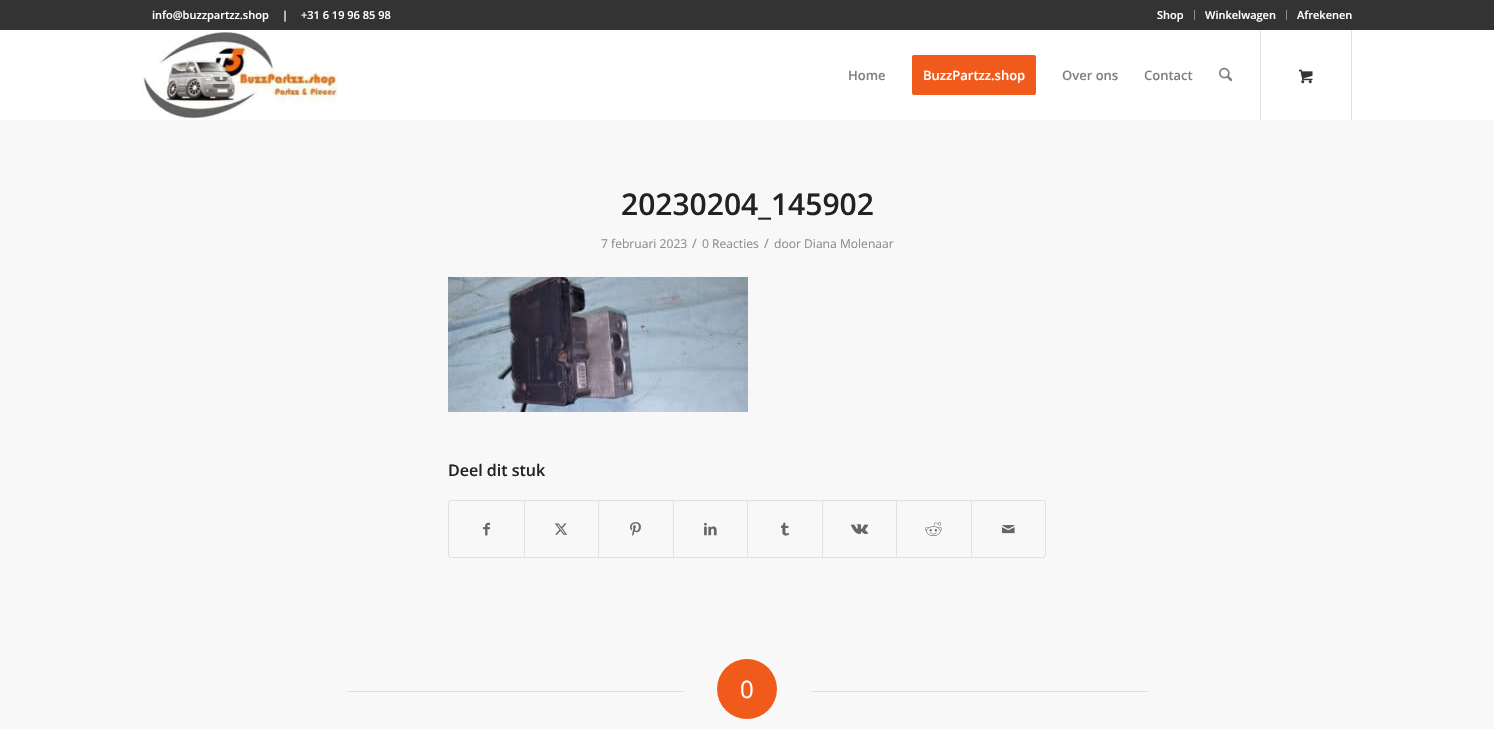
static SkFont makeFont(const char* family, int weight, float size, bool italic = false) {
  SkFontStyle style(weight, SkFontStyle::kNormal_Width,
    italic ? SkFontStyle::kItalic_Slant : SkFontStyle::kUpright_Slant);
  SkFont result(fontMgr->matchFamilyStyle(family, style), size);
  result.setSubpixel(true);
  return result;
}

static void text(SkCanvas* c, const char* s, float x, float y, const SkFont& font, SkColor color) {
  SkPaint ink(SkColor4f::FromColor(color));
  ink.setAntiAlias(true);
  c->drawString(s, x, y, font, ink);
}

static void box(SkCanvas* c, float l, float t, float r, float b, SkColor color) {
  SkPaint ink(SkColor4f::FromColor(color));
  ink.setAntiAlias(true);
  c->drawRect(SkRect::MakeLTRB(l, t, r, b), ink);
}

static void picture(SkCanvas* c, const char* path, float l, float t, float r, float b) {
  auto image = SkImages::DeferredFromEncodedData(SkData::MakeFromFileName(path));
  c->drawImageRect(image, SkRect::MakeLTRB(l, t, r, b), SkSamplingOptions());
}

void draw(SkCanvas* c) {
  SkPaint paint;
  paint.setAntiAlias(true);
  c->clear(0xfff8f8f8);
  box(c, 0, 0, 1494, 30, 0xff333333);
  SkFont face1 = makeFont("Open Sans", 600, 11);
  text(c, "info@buzzpartzz.shop", 152, 19, face1, 0xffffffff);
  text(c, "|", 282, 19, face1, 0xffffffff);
  text(c, "+31 6 19 96 85 98", 301, 19, face1, 0xffffffff);
  box(c, 1194, 10, 1195, 20, 0xff7995ad);
  text(c, "Shop", 1157, 19, face1, 0xffffffff);
  box(c, 1286, 10, 1287, 20, 0xff7995ad);
  text(c, "Winkelwagen", 1205, 19, face1, 0xffffffff);
  text(c, "Afrekenen", 1297, 19, face1, 0xffffffff);
  box(c, 0, 30, 1494, 120, 0xffffffff);
  picture(c, "img_01.png", 142, 30, 338, 119);
  SkFont face2 = makeFont("Open Sans", 600, 13);
  text(c, "Home", 848, 80, face2, 0xff808080);
  paint.setColor(0xfff05a1a);
  c->drawRoundRect(SkRect::MakeLTRB(913, 56, 1035, 94), 1, 1, paint);
  paint.setStyle(SkPaint::kStroke_Style);
  paint.setStrokeWidth(2);
  c->drawRoundRect(SkRect::MakeLTRB(913, 56, 1035, 94), 1, 1, paint);
  text(c, "BuzzPartzz.shop", 923, 80, face2, 0xffffffff);
  text(c, "Over ons", 1062, 80, face2, 0xff808080);
  text(c, "Contact", 1144, 80, face2, 0xff808080);
  picture(c, "img_02.png", 1219, 67, 1232, 82);
  box(c, 1351, 30, 1352, 120, 0xffe1e1e1);
  box(c, 1260, 30, 1261, 120, 0xffe1e1e1);
  picture(c, "img_03.png", 1299, 69, 1313, 84);
  SkFont face3 = makeFont("Open Sans", 600, 30);
  text(c, "20230204_145902", 621, 215, face3, 0xff222222);
  SkFont face4 = makeFont("Open Sans", 400, 12.1f);
  text(c, "7 februari 2023", 601, 248, face4, 0xff8d8d8d);
  SkFont face5 = makeFont("Open Sans", 400, 13);
  text(c, "/", 692, 248, face5, 0xff8d8d8d);
  text(c, "0 Reacties", 702, 248, face4, 0xff8d8d8d);
  text(c, "/", 764, 248, face5, 0xff8d8d8d);
  text(c, "door Diana Molenaar", 774, 248, face4, 0xff8d8d8d);
  picture(c, "img_04.png", 448, 277, 748, 412);
  paint.setStyle(SkPaint::kFill_Style);
  paint.setColor(0xfff8f8f8);
  c->drawCircle(898, 287, 40, paint);
  SkFont face6 = makeFont("Open Sans", 600, 16);
  text(c, "Deel dit stuk", 448, 476, face6, 0xff222222);
  paint.setStyle(SkPaint::kStroke_Style);
  paint.setStrokeWidth(1);
  paint.setColor(0xffe1e1e1);
  c->drawRoundRect(SkRect::MakeLTRB(448.5f, 500.5f, 1045.5f, 557.5f), 2.5f, 2.5f, paint);
  picture(c, "img_05.png", 483, 522, 490, 536);
  box(c, 524, 501, 525, 557, 0xffe1e1e1);
  picture(c, "img_06.png", 554, 523, 568, 535);
  box(c, 598, 501, 599, 557, 0xffe1e1e1);
  picture(c, "img_07.png", 630, 522, 641, 536);
  box(c, 673, 501, 674, 557, 0xffe1e1e1);
  picture(c, "img_08.png", 704, 522, 717, 536);
  box(c, 747, 501, 748, 557, 0xffe1e1e1);
  picture(c, "img_09.png", 781, 522, 789, 536);
  box(c, 822, 501, 823, 557, 0xffe1e1e1);
  picture(c, "img_10.png", 851, 524, 868, 534);
  box(c, 896, 501, 897, 557, 0xffe1e1e1);
  picture(c, "img_11.png", 925, 522, 942, 537);
  box(c, 971, 501, 972, 557, 0xffe1e1e1);
  picture(c, "img_12.png", 1002, 525, 1015, 534);
  box(c, 347, 691, 683, 692, 0xffe1e1e1);
  paint.setStyle(SkPaint::kFill_Style);
  paint.setColor(0xfff05a1a);
  c->drawCircle(747, 689, 30, paint);
  SkFont face7 = makeFont("Open Sans", 400, 24);
  text(c, "0", 740, 698, face7, 0xffffffff);
  box(c, 811, 691, 1147, 692, 0xffe1e1e1);
}
